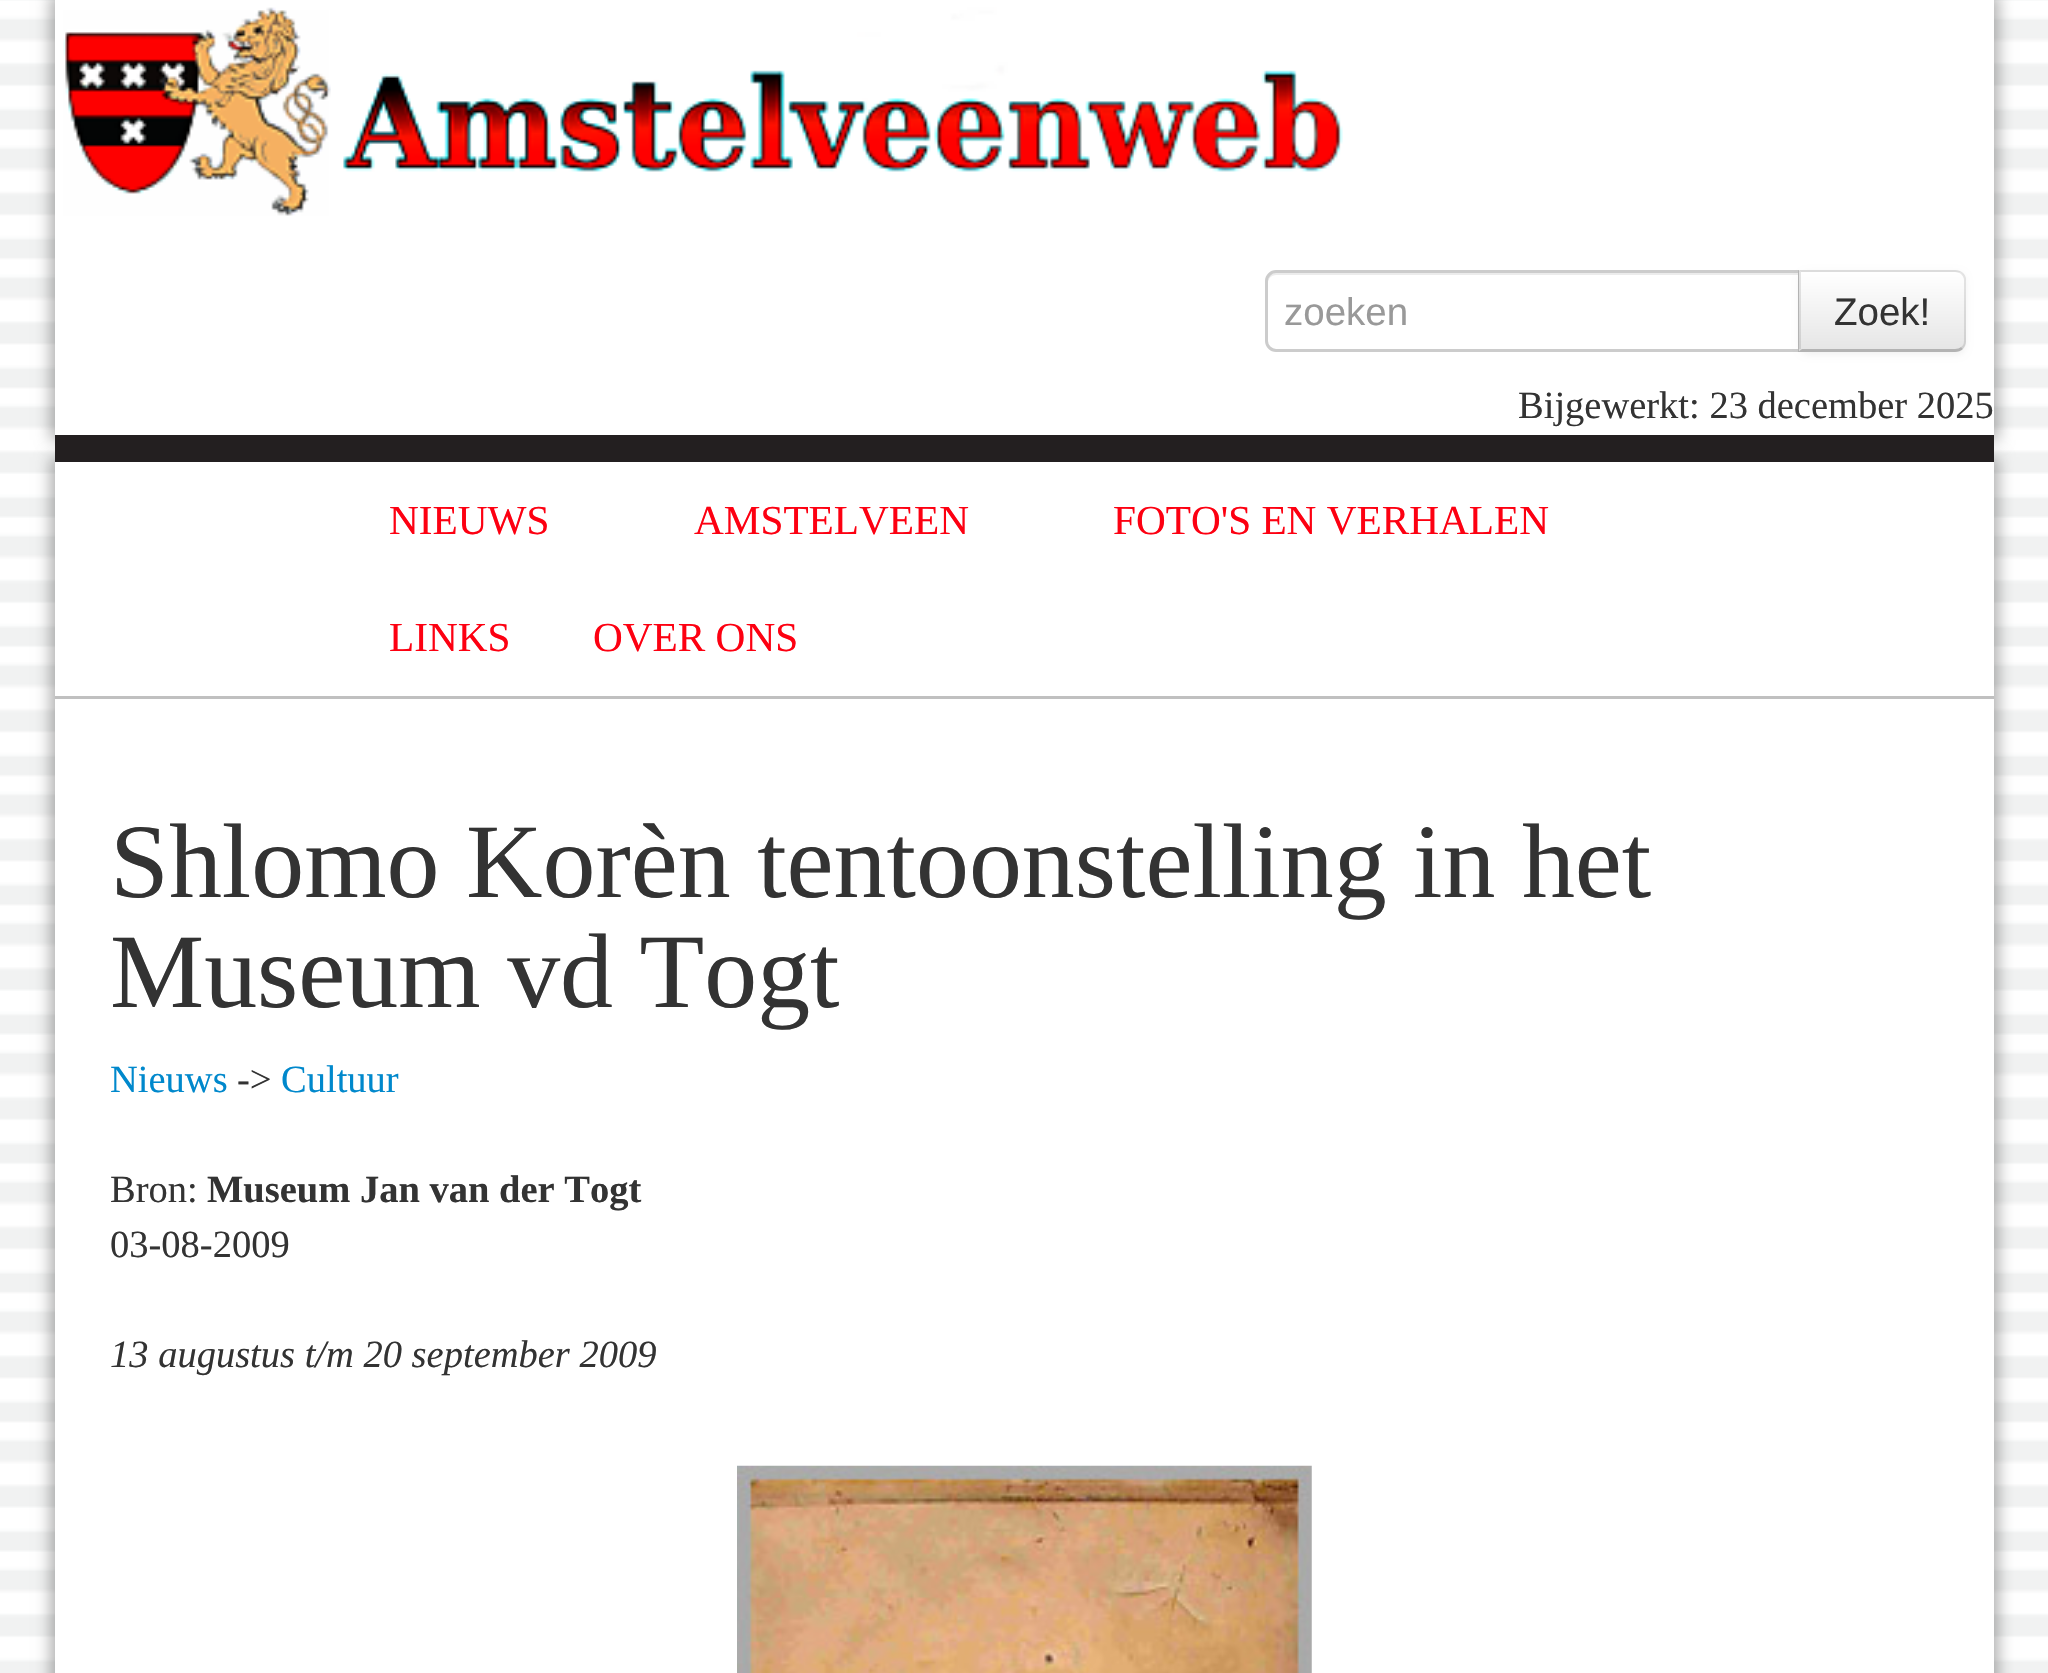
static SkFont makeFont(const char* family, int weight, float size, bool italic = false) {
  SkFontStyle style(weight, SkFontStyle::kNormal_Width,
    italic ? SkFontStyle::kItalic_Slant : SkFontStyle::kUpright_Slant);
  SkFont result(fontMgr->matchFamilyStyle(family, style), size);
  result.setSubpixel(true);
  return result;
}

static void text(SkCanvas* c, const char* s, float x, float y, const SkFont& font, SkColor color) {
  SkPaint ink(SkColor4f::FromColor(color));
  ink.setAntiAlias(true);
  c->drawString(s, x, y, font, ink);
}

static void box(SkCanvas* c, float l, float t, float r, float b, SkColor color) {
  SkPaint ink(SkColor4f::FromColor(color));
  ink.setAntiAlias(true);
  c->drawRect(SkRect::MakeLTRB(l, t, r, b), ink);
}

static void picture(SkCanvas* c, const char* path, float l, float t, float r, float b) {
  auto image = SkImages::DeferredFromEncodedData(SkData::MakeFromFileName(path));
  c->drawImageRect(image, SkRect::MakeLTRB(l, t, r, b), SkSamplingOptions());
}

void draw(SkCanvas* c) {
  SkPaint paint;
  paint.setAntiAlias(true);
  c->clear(0xffffffff);
  picture(c, "img_01.png", 0, 0, 2048, 1673);
  paint.setColor(0x4d000000);
  paint.setMaskFilter(SkMaskFilter::MakeBlur(kNormal_SkBlurStyle, 7));
  c->drawRect(SkRect::MakeLTRB(50, -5, 1999, 440), paint);
  paint.setMaskFilter(nullptr);
  box(c, 55, 0, 1994, 435, 0xffffffff);
  picture(c, "img_02.png", 63, 7, 1343, 216);
  paint.setColor(0xffececec);
  c->drawPath(SkPathBuilder().moveTo(1276, 275).lineTo(1798, 275).lineTo(1798, 349).lineTo(1799, 349).lineTo(1799, 272).lineTo(1276, 272).cubicTo(1270, 272, 1268, 278, 1268, 283).cubicTo(1268, 279, 1271, 275, 1276, 275).close().detach(), paint);
  paint.setStyle(SkPaint::kStroke_Style);
  paint.setStrokeWidth(3);
  paint.setColor(0xffcccccc);
  c->drawPath(SkPathBuilder().moveTo(1276, 271.5f).lineTo(1799.5f, 271.5f).lineTo(1799.5f, 350.5f).lineTo(1276, 350.5f).cubicTo(1271, 350.5f, 1266.5f, 346, 1266.5f, 341).lineTo(1266.5f, 281).cubicTo(1266.5f, 276, 1271, 271.5f, 1276, 271.5f).close().detach(), paint);
  SkFont face1 = makeFont("Liberation Sans", 400, 38.5f);
  text(c, "zoeken", 1284, 325, face1, 0xff999999);
  paint.setStyle(SkPaint::kFill_Style);
  paint.setColor(0x0d000000);
  paint.setMaskFilter(SkMaskFilter::MakeBlur(kNormal_SkBlurStyle, 3));
  c->drawRoundRect(SkRect::MakeLTRB(1799, 272, 1966, 355), 11, 11, paint);
  paint.setMaskFilter(nullptr);
  paint.setColor(0xfff5f5f5);
  c->drawPath(SkPathBuilder().moveTo(1799, 270).lineTo(1955, 270).cubicTo(1961, 270, 1966, 275, 1966, 281).lineTo(1966, 341).cubicTo(1966, 347, 1961, 352, 1955, 352).lineTo(1799, 352).close().detach(), paint);
  c->save();
  c->clipPath(SkPathBuilder().moveTo(1799, 270).lineTo(1955, 270).cubicTo(1961, 270, 1966, 275, 1966, 281).lineTo(1966, 341).cubicTo(1966, 347, 1961, 352, 1955, 352).lineTo(1799, 352).close().detach(), true);
  {
    const SkColor colors[] = {0xffffffff, 0xffe6e6e6};
    const float stops[] = {0, 1};
    const SkPoint ends[] = {{1882, 272}, {1882, 349}};
    paint.setShader(SkGradientShader::MakeLinear(ends, colors, stops, 2, SkTileMode::kClamp));
    paint.setAlpha(255);
  }
  c->drawRect(SkRect::MakeLTRB(1799, 272, 1966, 349), paint);
  c->restore();
  paint.setShader(nullptr);
  paint.setColor(0x1a000000);
  c->drawPath(SkPathBuilder().moveTo(1801, 272).lineTo(1955, 272).cubicTo(1957, 272, 1960, 273, 1961, 274).lineTo(1963, 273).cubicTo(1961, 271, 1958, 270, 1955, 270).lineTo(1799, 270).close().detach(), paint);
  c->drawPath(SkPathBuilder().moveTo(1963, 273).cubicTo(1965, 275, 1966, 277, 1966, 280).lineTo(1966, 341).cubicTo(1966, 344, 1965, 347, 1963, 349).lineTo(1961, 347).cubicTo(1963, 346, 1964, 344, 1964, 341).lineTo(1964, 280).cubicTo(1964, 278, 1963, 276, 1961, 274).close().detach(), paint);
  paint.setColor(0xffb3b3b3);
  c->drawPath(SkPathBuilder().moveTo(1798, 352).lineTo(1955, 352).cubicTo(1958, 352, 1961, 351, 1963, 349).lineTo(1961, 347).cubicTo(1960, 348, 1957, 349, 1955, 349).lineTo(1802, 349).close().detach(), paint);
  paint.setColor(0x1a000000);
  c->drawPath(SkPathBuilder().moveTo(1801, 272).lineTo(1798, 270).lineTo(1798, 352).lineTo(1802, 349).lineTo(1801, 349).close().detach(), paint);
  text(c, "Zoek!", 1834, 325, face1, 0xff333333);
  SkFont face2 = makeFont("Liberation Serif", 400, 38.5f);
  text(c, "Bijgewerkt: 23 december 2025", 1518, 418, face2, 0xff333333);
  paint.setColor(0x4d000000);
  paint.setMaskFilter(SkMaskFilter::MakeBlur(kNormal_SkBlurStyle, 7));
  c->drawRect(SkRect::MakeLTRB(50, 457, 1999, 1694), paint);
  paint.setMaskFilter(nullptr);
  box(c, 55, 435, 1994, 462, 0xff231f20);
  box(c, 55, 462, 1994, 1673, 0xffffffff);
  box(c, 55, 696, 1994, 699, 0xffc0c0c0);
  SkFont face3 = makeFont("Liberation Serif", 400, 41.25f);
  text(c, "NIEUWS", 389, 534, face3, 0xfffd0011);
  text(c, "AMSTELVEEN", 694, 534, face3, 0xfffd0011);
  text(c, "FOTO'S EN VERHALEN", 1113, 534, face3, 0xfffd0011);
  text(c, "LINKS", 389, 651, face3, 0xfffd0011);
  text(c, "OVER ONS", 593, 651, face3, 0xfffd0011);
  SkFont face4 = makeFont("Liberation Serif", 400, 105.9f);
  text(c, "Shlomo Korèn tentoonstelling in het", 110, 897, face4, 0xff333333);
  text(c, "Museum vd Togt", 110, 1007, face4, 0xff333333);
  text(c, "Nieuws", 110, 1092, face2, 0xff0088cc);
  text(c, "->", 237, 1092, face2, 0xff333333);
  text(c, "Cultuur", 281, 1092, face2, 0xff0088cc);
  text(c, "Bron:", 110, 1202, face2, 0xff333333);
  SkFont face5 = makeFont("Liberation Serif", 700, 38.5f);
  text(c, "Museum Jan van der Togt", 207, 1202, face5, 0xff333333);
  text(c, "03-08-2009", 110, 1257, face2, 0xff333333);
  SkFont face6 = makeFont("Liberation Serif", 400, 38.5f, true);
  text(c, "13 augustus t/m 20 september 2009", 110, 1367, face6, 0xff333333);
  picture(c, "img_03.png", 737, 1465, 1312, 1673);
}
